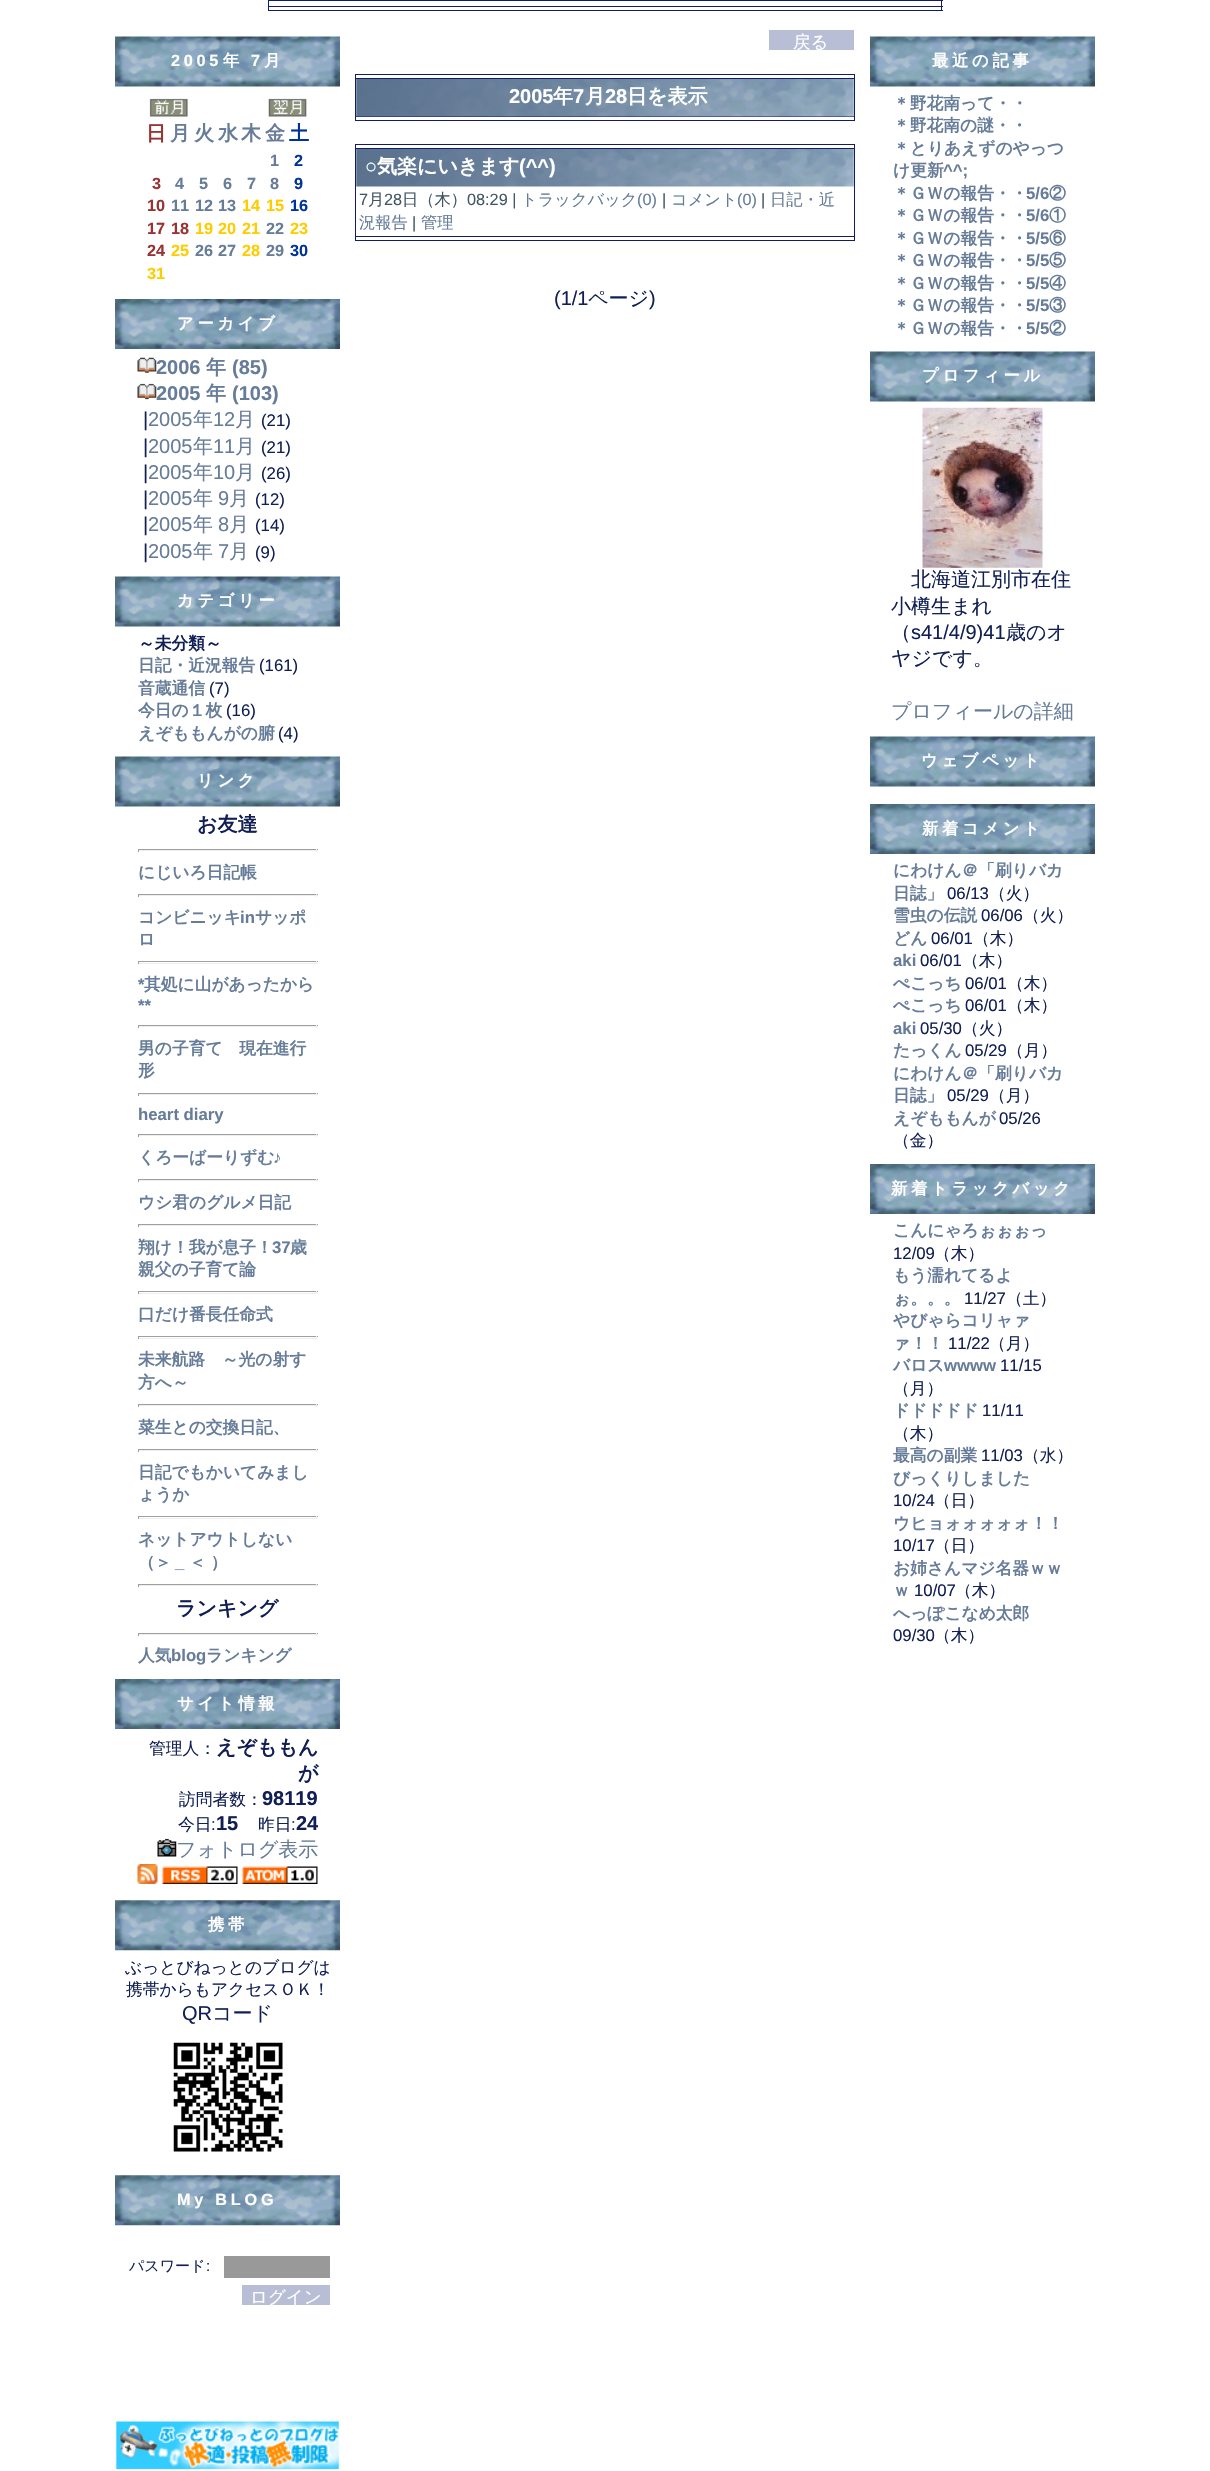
static SkFont makeFont(const char* family, int weight, float size, bool italic = false) {
  SkFontStyle style(weight, SkFontStyle::kNormal_Width,
    italic ? SkFontStyle::kItalic_Slant : SkFontStyle::kUpright_Slant);
  SkFont result(fontMgr->matchFamilyStyle(family, style), size);
  result.setSubpixel(true);
  return result;
}

static void text(SkCanvas* c, const char* s, float x, float y, const SkFont& font, SkColor color) {
  SkPaint ink(SkColor4f::FromColor(color));
  ink.setAntiAlias(true);
  c->drawString(s, x, y, font, ink);
}

static void spacedText(SkCanvas* c, const char* s, float x, float y, const SkFont& font, const SkPaint& ink, float letter, float word) {
  std::vector<SkGlyphID> glyphs(font.countText(s, strlen(s), SkTextEncoding::kUTF8));
  std::vector<float> xs(glyphs.size());
  font.textToGlyphs(s, strlen(s), SkTextEncoding::kUTF8, glyphs);
  font.getXPos(glyphs, xs, x);
  float extra = 0;
  for (size_t i = 0; i < glyphs.size(); i++) {
    xs[i] += extra;
    extra += letter + word * (glyphs[i] == font.unicharToGlyph(' '));
  }
  c->drawTextBlob(SkTextBlob::MakeFromPosHGlyphs(glyphs, xs, y, font), 0, 0, ink);
}

static void box(SkCanvas* c, float l, float t, float r, float b, SkColor color) {
  SkPaint ink(SkColor4f::FromColor(color));
  ink.setAntiAlias(true);
  c->drawRect(SkRect::MakeLTRB(l, t, r, b), ink);
}

static void picture(SkCanvas* c, const char* path, float l, float t, float r, float b) {
  auto image = SkImages::DeferredFromEncodedData(SkData::MakeFromFileName(path));
  c->drawImageRect(image, SkRect::MakeLTRB(l, t, r, b), SkSamplingOptions());
}

void draw(SkCanvas* c) {
  SkPaint paint;
  paint.setAntiAlias(true);
  c->clear(0xffffffff);
  box(c, 268, 0, 943, 1, 0xff111d66);
  box(c, 941, 0, 942, 11, 0xff111d66);
  box(c, 268, 6, 943, 7, 0xff111d66);
  box(c, 268, 10, 943, 11, 0xff111d66);
  box(c, 268, 0, 269, 11, 0xff111d66);
  picture(c, "img_01.png", 115, 36, 340, 87);
  SkFont face1 = makeFont("Liberation Sans", 700, 16.25f);
  paint.setColor(0xffffffff);
  spacedText(c, "2005", 171, 66, face1, paint, 3.75f, 0);
  SkFont face2 = makeFont("WenQuanYi Zen Hei", 700, 16.25f);
  spacedText(c, "年", 223, 66, face2, paint, 3.75f, 0);
  spacedText(c, "7", 251, 66, face1, paint, 3.75f, 0);
  spacedText(c, "月", 264, 66, face2, paint, 3.75f, 0);
  picture(c, "img_02.png", 149, 98, 188, 117);
  picture(c, "img_03.png", 268, 98, 307, 117);
  SkFont face3 = makeFont("WenQuanYi Zen Hei", 700, 20);
  text(c, "日", 146, 140, face3, 0xff993333);
  text(c, "月", 170, 140, face3, 0xff667c99);
  text(c, "火", 194, 140, face3, 0xff667c99);
  text(c, "水", 218, 140, face3, 0xff667c99);
  text(c, "木", 241, 140, face3, 0xff667c99);
  text(c, "金", 265, 140, face3, 0xff667c99);
  text(c, "土", 289, 140, face3, 0xff003399);
  text(c, "1", 270, 166, face1, 0xff667c99);
  text(c, "2", 294, 166, face1, 0xff003399);
  text(c, "3", 152, 189, face1, 0xff993333);
  text(c, "4", 175, 189, face1, 0xff667c99);
  text(c, "5", 199, 189, face1, 0xff667c99);
  text(c, "6", 223, 189, face1, 0xff667c99);
  text(c, "7", 247, 189, face1, 0xff667c99);
  text(c, "8", 270, 189, face1, 0xff667c99);
  text(c, "9", 294, 189, face1, 0xff003399);
  text(c, "10", 147, 211, face1, 0xff993333);
  text(c, "11", 171, 211, face1, 0xff667c99);
  text(c, "12", 195, 211, face1, 0xff667c99);
  text(c, "13", 218, 211, face1, 0xff667c99);
  text(c, "14", 242, 211, face1, 0xffffcc00);
  text(c, "15", 266, 211, face1, 0xffffcc00);
  text(c, "16", 290, 211, face1, 0xff003399);
  text(c, "17", 147, 234, face1, 0xff993333);
  text(c, "18", 171, 234, face1, 0xff993333);
  text(c, "19", 195, 234, face1, 0xffffcc00);
  text(c, "20", 218, 234, face1, 0xffffcc00);
  text(c, "21", 242, 234, face1, 0xffffcc00);
  text(c, "22", 266, 234, face1, 0xff667c99);
  text(c, "23", 290, 234, face1, 0xffffcc00);
  text(c, "24", 147, 256, face1, 0xff993333);
  text(c, "25", 171, 256, face1, 0xffffcc00);
  text(c, "26", 195, 256, face1, 0xff667c99);
  text(c, "27", 218, 256, face1, 0xff667c99);
  text(c, "28", 242, 256, face1, 0xffffcc00);
  text(c, "29", 266, 256, face1, 0xff667c99);
  text(c, "30", 290, 256, face1, 0xff003399);
  text(c, "31", 147, 279, face1, 0xffffcc00);
  picture(c, "img_04.png", 115, 299, 340, 349);
  spacedText(c, "アーカイブ", 177, 329, face2, paint, 3.75f, 0);
  picture(c, "img_05.png", 137, 357, 157, 373);
  SkFont face4 = makeFont("Liberation Sans", 700, 20);
  text(c, "2006", 156, 374, face4, 0xff667c99);
  text(c, "年", 206, 374, face3, 0xff667c99);
  text(c, "(85)", 232, 374, face4, 0xff667c99);
  picture(c, "img_06.png", 137, 383, 157, 400);
  text(c, "2005", 156, 400, face4, 0xff667c99);
  text(c, "年", 206, 400, face3, 0xff667c99);
  text(c, "(103)", 232, 400, face4, 0xff667c99);
  SkFont face5 = makeFont("Liberation Sans", 400, 20);
  text(c, "|", 143, 426, face5, 0xff111f55);
  text(c, "2005", 148, 426, face5, 0xff667c99);
  SkFont face6 = makeFont("WenQuanYi Zen Hei", 500, 20);
  text(c, "年", 193, 426, face6, 0xff667c99);
  text(c, "12", 213, 426, face5, 0xff667c99);
  text(c, "月", 235, 426, face6, 0xff667c99);
  SkFont face7 = makeFont("Liberation Sans", 400, 16.75f);
  text(c, "(21)", 261, 426, face7, 0xff111f55);
  text(c, "|", 143, 453, face5, 0xff111f55);
  text(c, "2005", 148, 453, face5, 0xff667c99);
  text(c, "年", 193, 453, face6, 0xff667c99);
  text(c, "11", 213, 453, face5, 0xff667c99);
  text(c, "月", 235, 453, face6, 0xff667c99);
  text(c, "(21)", 261, 453, face7, 0xff111f55);
  text(c, "|", 143, 479, face5, 0xff111f55);
  text(c, "2005", 148, 479, face5, 0xff667c99);
  text(c, "年", 193, 479, face6, 0xff667c99);
  text(c, "10", 213, 479, face5, 0xff667c99);
  text(c, "月", 235, 479, face6, 0xff667c99);
  text(c, "(26)", 261, 479, face7, 0xff111f55);
  text(c, "|", 143, 505, face5, 0xff111f55);
  text(c, "2005", 148, 505, face5, 0xff667c99);
  text(c, "年", 193, 505, face6, 0xff667c99);
  text(c, "9", 218, 505, face5, 0xff667c99);
  text(c, "月", 229, 505, face6, 0xff667c99);
  text(c, "(12)", 255, 505, face7, 0xff111f55);
  text(c, "|", 143, 531, face5, 0xff111f55);
  text(c, "2005", 148, 531, face5, 0xff667c99);
  text(c, "年", 193, 531, face6, 0xff667c99);
  text(c, "8", 218, 531, face5, 0xff667c99);
  text(c, "月", 229, 531, face6, 0xff667c99);
  text(c, "(14)", 255, 531, face7, 0xff111f55);
  text(c, "|", 143, 558, face5, 0xff111f55);
  text(c, "2005", 148, 558, face5, 0xff667c99);
  text(c, "年", 193, 558, face6, 0xff667c99);
  text(c, "7", 218, 558, face5, 0xff667c99);
  text(c, "月", 229, 558, face6, 0xff667c99);
  text(c, "(9)", 255, 558, face7, 0xff111f55);
  picture(c, "img_07.png", 115, 576, 340, 627);
  spacedText(c, "カテゴリー", 177, 606, face2, paint, 3.75f, 0);
  SkFont face8 = makeFont("WenQuanYi Zen Hei", 700, 16.75f);
  text(c, "～未分類～", 138, 649, face8, 0xff111f55);
  text(c, "日記・近況報告", 138, 671, face8, 0xff667c99);
  text(c, "(161)", 259, 671, face7, 0xff111f55);
  text(c, "音蔵通信", 138, 694, face8, 0xff667c99);
  text(c, "(7)", 209, 694, face7, 0xff111f55);
  text(c, "今日の１枚", 138, 716, face8, 0xff667c99);
  text(c, "(16)", 226, 716, face7, 0xff111f55);
  text(c, "えぞももんがの腑", 138, 739, face8, 0xff667c99);
  text(c, "(4)", 278, 739, face7, 0xff111f55);
  picture(c, "img_01.png", 115, 756, 340, 807);
  spacedText(c, "リンク", 197, 786, face2, paint, 3.75f, 0);
  text(c, "お友達", 197, 831, face3, 0xff111f55);
  box(c, 138, 849, 318, 850, 0xff9f9f9f);
  box(c, 316, 849, 317, 852, 0xffeeeeee);
  box(c, 138, 850, 318, 851, 0xffeeeeee);
  box(c, 138, 849, 139, 852, 0xff9f9f9f);
  text(c, "にじいろ日記帳", 138, 878, face8, 0xff667c99);
  box(c, 138, 894, 318, 895, 0xff9f9f9f);
  box(c, 316, 894, 317, 897, 0xffeeeeee);
  box(c, 138, 895, 318, 896, 0xffeeeeee);
  box(c, 138, 894, 139, 897, 0xff9f9f9f);
  text(c, "コンビニッキ", 138, 923, face8, 0xff667c99);
  SkFont face9 = makeFont("Liberation Sans", 700, 16.75f);
  text(c, "in", 240, 923, face9, 0xff667c99);
  text(c, "サッポ", 255, 923, face8, 0xff667c99);
  text(c, "ロ", 138, 945, face8, 0xff667c99);
  box(c, 138, 961, 318, 962, 0xff9f9f9f);
  box(c, 316, 961, 317, 964, 0xffeeeeee);
  box(c, 138, 963, 318, 964, 0xffeeeeee);
  box(c, 138, 961, 139, 964, 0xff9f9f9f);
  text(c, "*", 138, 990, face9, 0xff667c99);
  text(c, "其処に山があったから", 144, 990, face8, 0xff667c99);
  text(c, "**", 138, 1011, face9, 0xff667c99);
  box(c, 138, 1025, 318, 1026, 0xff9f9f9f);
  box(c, 316, 1025, 317, 1028, 0xffeeeeee);
  box(c, 138, 1026, 318, 1027, 0xffeeeeee);
  box(c, 138, 1025, 139, 1028, 0xff9f9f9f);
  text(c, "男の子育て　現在進行", 138, 1054, face8, 0xff667c99);
  text(c, "形", 138, 1076, face8, 0xff667c99);
  box(c, 138, 1093, 318, 1094, 0xff9f9f9f);
  box(c, 316, 1093, 317, 1096, 0xffeeeeee);
  box(c, 138, 1094, 318, 1095, 0xffeeeeee);
  box(c, 138, 1093, 139, 1096, 0xff9f9f9f);
  text(c, "heart diary", 138, 1120, face9, 0xff667c99);
  box(c, 138, 1134, 318, 1135, 0xff9f9f9f);
  box(c, 316, 1134, 317, 1137, 0xffeeeeee);
  box(c, 138, 1135, 318, 1136, 0xffeeeeee);
  box(c, 138, 1134, 139, 1137, 0xff9f9f9f);
  text(c, "くろーばーりずむ", 138, 1163, face8, 0xff667c99);
  text(c, "♪", 273, 1163, face9, 0xff667c99);
  box(c, 138, 1179, 318, 1180, 0xff9f9f9f);
  box(c, 316, 1179, 317, 1182, 0xffeeeeee);
  box(c, 138, 1180, 318, 1181, 0xffeeeeee);
  box(c, 138, 1179, 139, 1182, 0xff9f9f9f);
  text(c, "ウシ君のグルメ日記", 138, 1208, face8, 0xff667c99);
  box(c, 138, 1224, 318, 1225, 0xff9f9f9f);
  box(c, 316, 1224, 317, 1227, 0xffeeeeee);
  box(c, 138, 1225, 318, 1226, 0xffeeeeee);
  box(c, 138, 1224, 139, 1227, 0xff9f9f9f);
  text(c, "翔け！我が息子！", 138, 1253, face8, 0xff667c99);
  text(c, "37", 272, 1253, face9, 0xff667c99);
  text(c, "歳", 290, 1253, face8, 0xff667c99);
  text(c, "親父の子育て論", 138, 1275, face8, 0xff667c99);
  box(c, 138, 1291, 318, 1292, 0xff9f9f9f);
  box(c, 316, 1291, 317, 1294, 0xffeeeeee);
  box(c, 138, 1293, 318, 1294, 0xffeeeeee);
  box(c, 138, 1291, 139, 1294, 0xff9f9f9f);
  text(c, "口だけ番長任命式", 138, 1320, face8, 0xff667c99);
  box(c, 138, 1336, 318, 1337, 0xff9f9f9f);
  box(c, 316, 1336, 317, 1339, 0xffeeeeee);
  box(c, 138, 1338, 318, 1339, 0xffeeeeee);
  box(c, 138, 1336, 139, 1339, 0xff9f9f9f);
  text(c, "未来航路　～光の射す", 138, 1365, face8, 0xff667c99);
  text(c, "方へ～", 138, 1388, face8, 0xff667c99);
  box(c, 138, 1404, 318, 1405, 0xff9f9f9f);
  box(c, 316, 1404, 317, 1407, 0xffeeeeee);
  box(c, 138, 1405, 318, 1406, 0xffeeeeee);
  box(c, 138, 1404, 139, 1407, 0xff9f9f9f);
  text(c, "菜生との交換日記、", 138, 1433, face8, 0xff667c99);
  box(c, 138, 1449, 318, 1450, 0xff9f9f9f);
  box(c, 316, 1449, 317, 1452, 0xffeeeeee);
  box(c, 138, 1450, 318, 1451, 0xffeeeeee);
  box(c, 138, 1449, 139, 1452, 0xff9f9f9f);
  text(c, "日記でもかいてみまし", 138, 1478, face8, 0xff667c99);
  text(c, "ょうか", 138, 1500, face8, 0xff667c99);
  box(c, 138, 1516, 318, 1517, 0xff9f9f9f);
  box(c, 316, 1516, 317, 1519, 0xffeeeeee);
  box(c, 138, 1518, 318, 1519, 0xffeeeeee);
  box(c, 138, 1516, 139, 1519, 0xff9f9f9f);
  text(c, "ネットアウトしない", 138, 1545, face8, 0xff667c99);
  text(c, "（＞", 138, 1568, face8, 0xff667c99);
  text(c, "_", 175, 1568, face9, 0xff667c99);
  text(c, "＜ ）", 189, 1568, face8, 0xff667c99);
  box(c, 138, 1584, 318, 1585, 0xff9f9f9f);
  box(c, 316, 1584, 317, 1587, 0xffeeeeee);
  box(c, 138, 1585, 318, 1586, 0xffeeeeee);
  box(c, 138, 1584, 139, 1587, 0xff9f9f9f);
  text(c, "ランキング", 176, 1615, face3, 0xff111f55);
  box(c, 138, 1633, 318, 1634, 0xff9f9f9f);
  box(c, 316, 1633, 317, 1636, 0xffeeeeee);
  box(c, 138, 1634, 318, 1635, 0xffeeeeee);
  box(c, 138, 1633, 139, 1636, 0xff9f9f9f);
  text(c, "人気", 138, 1661, face8, 0xff667c99);
  text(c, "blog", 171, 1661, face9, 0xff667c99);
  text(c, "ランキング", 206, 1661, face8, 0xff667c99);
  picture(c, "img_04.png", 115, 1679, 340, 1729);
  spacedText(c, "サイト情報", 177, 1709, face2, paint, 3.75f, 0);
  SkFont face10 = makeFont("WenQuanYi Zen Hei", 500, 16.75f);
  text(c, "管理人：", 149, 1754, face10, 0xff111f55);
  text(c, "えぞももん", 216, 1754, face3, 0xff111f55);
  text(c, "が", 298, 1780, face3, 0xff111f55);
  text(c, "訪問者数：", 179, 1805, face10, 0xff111f55);
  text(c, "98119", 262, 1805, face4, 0xff111f55);
  text(c, "今日", 178, 1830, face10, 0xff111f55);
  text(c, ":", 211, 1830, face7, 0xff111f55);
  text(c, "15", 216, 1830, face4, 0xff111f55);
  text(c, "昨日", 258, 1830, face10, 0xff111f55);
  text(c, ":", 291, 1830, face7, 0xff111f55);
  text(c, "24", 296, 1830, face4, 0xff111f55);
  picture(c, "img_08.png", 157, 1838, 177, 1857);
  text(c, "フォトログ表示", 176, 1856, face6, 0xff667c99);
  picture(c, "img_09.png", 137, 1864, 158, 1884);
  picture(c, "img_10.png", 162, 1866, 238, 1884);
  picture(c, "img_11.png", 242, 1866, 318, 1884);
  picture(c, "img_12.png", 115, 1900, 340, 1951);
  spacedText(c, "携帯", 208, 1930, face2, paint, 3.75f, 0);
  text(c, "ぶっとびねっとのブログは", 125, 1973, face10, 0xff111f55);
  text(c, "携帯からもアクセスＯＫ！", 126, 1995, face10, 0xff111f55);
  text(c, "QR", 182, 2020, face5, 0xff111f55);
  text(c, "コード", 212, 2020, face6, 0xff111f55);
  picture(c, "img_13.png", 173, 2042, 283, 2152);
  picture(c, "img_12.png", 115, 2175, 340, 2226);
  spacedText(c, "My BLOG", 177, 2205, face1, paint, 3.75f, 0);
  SkFont face11 = makeFont("WenQuanYi Zen Hei", 500, 15);
  text(c, "パスワード", 129, 2271, face11, 0xff111f55);
  SkFont face12 = makeFont("Liberation Sans", 400, 15);
  text(c, ":", 206, 2271, face12, 0xff111f55);
  box(c, 224, 2256, 330, 2278, 0xff999999);
  box(c, 242, 2285, 330, 2305, 0xffb8bed6);
  c->save();
  c->clipRect(SkRect::MakeLTRB(243, 2285, 330, 2305));
  SkFont face13 = makeFont("WenQuanYi Zen Hei", 500, 17.5f);
  text(c, "ログイン", 250, 2303, face13, 0xffffffff);
  c->restore();
  picture(c, "img_14.png", 116, 2421, 339, 2470);
  box(c, 769, 30, 854, 50, 0xffb8bed6);
  text(c, "戻る", 793, 48, face13, 0xffffffff);
  box(c, 355, 74, 855, 75, 0xff111d66);
  box(c, 355, 78, 855, 79, 0xff111d66);
  box(c, 854, 74, 855, 121, 0xff111d66);
  box(c, 355, 116, 855, 117, 0xff111d66);
  box(c, 355, 120, 855, 121, 0xff111d66);
  box(c, 355, 74, 356, 121, 0xff111d66);
  picture(c, "img_15.png", 356, 79, 854, 117);
  text(c, "2005", 509, 103, face4, 0xffffffff);
  text(c, "年", 553, 103, face3, 0xffffffff);
  text(c, "7", 573, 103, face4, 0xffffffff);
  text(c, "月", 585, 103, face3, 0xffffffff);
  text(c, "28", 605, 103, face4, 0xffffffff);
  text(c, "日を表示", 627, 103, face3, 0xffffffff);
  box(c, 355, 144, 855, 145, 0xff111d66);
  box(c, 355, 148, 855, 149, 0xff111d66);
  box(c, 854, 144, 855, 241, 0xff111d66);
  box(c, 355, 236, 855, 237, 0xff111d66);
  box(c, 355, 240, 855, 241, 0xff111d66);
  box(c, 355, 144, 356, 241, 0xff111d66);
  picture(c, "img_16.png", 356, 149, 854, 187);
  text(c, "○", 365, 173, face4, 0xffffffff);
  text(c, "気楽にいきます", 377, 173, face3, 0xffffffff);
  text(c, "(^^)", 519, 173, face4, 0xffffffff);
  SkFont face14 = makeFont("Liberation Sans", 400, 16.25f);
  text(c, "7", 359, 205, face14, 0xff445666);
  SkFont face15 = makeFont("WenQuanYi Zen Hei", 500, 16.25f);
  text(c, "月", 368, 205, face15, 0xff445666);
  text(c, "28", 384, 205, face14, 0xff445666);
  text(c, "日（木）", 402, 205, face15, 0xff445666);
  text(c, "08:29 |", 467, 205, face14, 0xff445666);
  text(c, "トラックバック", 521, 205, face15, 0xff667c99);
  text(c, "(0)", 637, 205, face14, 0xff667c99);
  text(c, "|", 662, 205, face14, 0xff445666);
  text(c, "コメント", 671, 205, face15, 0xff667c99);
  text(c, "(0)", 737, 205, face14, 0xff667c99);
  text(c, "|", 761, 205, face14, 0xff445666);
  text(c, "日記・近", 770, 205, face15, 0xff667c99);
  text(c, "況報告", 359, 228, face15, 0xff667c99);
  text(c, "|", 412, 228, face14, 0xff445666);
  text(c, "管理", 421, 228, face15, 0xff667c99);
  text(c, "(1/1", 554, 305, face5, 0xff111f55);
  text(c, "ページ", 588, 305, face6, 0xff111f55);
  text(c, ")", 649, 305, face5, 0xff111f55);
  picture(c, "img_01.png", 870, 36, 1095, 87);
  spacedText(c, "最近の記事", 932, 66, face2, paint, 3.75f, 0);
  text(c, "＊野花南って・・", 893, 109, face8, 0xff667c99);
  text(c, "＊野花南の謎・・", 893, 131, face8, 0xff667c99);
  text(c, "＊とりあえずのやっつ", 893, 154, face8, 0xff667c99);
  text(c, "け更新", 893, 176, face8, 0xff667c99);
  text(c, "^^;", 943, 176, face9, 0xff667c99);
  text(c, "＊ＧＷの報告・・", 893, 199, face8, 0xff667c99);
  text(c, "5/6", 1026, 199, face9, 0xff667c99);
  text(c, "②", 1049, 199, face8, 0xff667c99);
  text(c, "＊ＧＷの報告・・", 893, 221, face8, 0xff667c99);
  text(c, "5/6", 1026, 221, face9, 0xff667c99);
  text(c, "①", 1049, 221, face8, 0xff667c99);
  text(c, "＊ＧＷの報告・・", 893, 244, face8, 0xff667c99);
  text(c, "5/5", 1026, 244, face9, 0xff667c99);
  text(c, "⑥", 1049, 244, face8, 0xff667c99);
  text(c, "＊ＧＷの報告・・", 893, 266, face8, 0xff667c99);
  text(c, "5/5", 1026, 266, face9, 0xff667c99);
  text(c, "⑤", 1049, 266, face8, 0xff667c99);
  text(c, "＊ＧＷの報告・・", 893, 289, face8, 0xff667c99);
  text(c, "5/5", 1026, 289, face9, 0xff667c99);
  text(c, "④", 1049, 289, face8, 0xff667c99);
  text(c, "＊ＧＷの報告・・", 893, 311, face8, 0xff667c99);
  text(c, "5/5", 1026, 311, face9, 0xff667c99);
  text(c, "③", 1049, 311, face8, 0xff667c99);
  text(c, "＊ＧＷの報告・・", 893, 334, face8, 0xff667c99);
  text(c, "5/5", 1026, 334, face9, 0xff667c99);
  text(c, "②", 1049, 334, face8, 0xff667c99);
  picture(c, "img_17.png", 870, 351, 1095, 402);
  spacedText(c, "プロフィール", 922, 381, face2, paint, 3.75f, 0);
  picture(c, "img_18.png", 922, 407, 1043, 568);
  text(c, "北海道江別市在住", 911, 586, face6, 0xff111f55);
  text(c, "小樽生まれ", 891, 613, face6, 0xff111f55);
  text(c, "（", 891, 639, face6, 0xff111f55);
  text(c, "s41/4/9)41", 911, 639, face5, 0xff111f55);
  text(c, "歳のオ", 1006, 639, face6, 0xff111f55);
  text(c, "ヤジです。", 891, 665, face6, 0xff111f55);
  text(c, "プロフィールの詳細", 891, 718, face6, 0xff667c99);
  picture(c, "img_01.png", 870, 736, 1095, 787);
  spacedText(c, "ウェブペット", 921, 766, face2, paint, 3.75f, 0);
  picture(c, "img_04.png", 870, 804, 1095, 854);
  spacedText(c, "新着コメント", 922, 834, face2, paint, 3.75f, 0);
  text(c, "にわけん＠「刷りバカ", 893, 876, face8, 0xff667c99);
  text(c, "日誌」", 893, 899, face8, 0xff667c99);
  text(c, "06/13", 947, 899, face7, 0xff111f55);
  text(c, "（火）", 989, 899, face10, 0xff111f55);
  text(c, "雪虫の伝説", 893, 921, face8, 0xff667c99);
  text(c, "06/06", 981, 921, face7, 0xff111f55);
  text(c, "（火）", 1023, 921, face10, 0xff111f55);
  text(c, "どん", 893, 944, face8, 0xff667c99);
  text(c, "06/01", 931, 944, face7, 0xff111f55);
  text(c, "（木）", 973, 944, face10, 0xff111f55);
  text(c, "aki", 893, 966, face9, 0xff667c99);
  text(c, "06/01", 920, 966, face7, 0xff111f55);
  text(c, "（木）", 962, 966, face10, 0xff111f55);
  text(c, "ぺこっち", 893, 989, face8, 0xff667c99);
  text(c, "06/01", 965, 989, face7, 0xff111f55);
  text(c, "（木）", 1007, 989, face10, 0xff111f55);
  text(c, "ぺこっち", 893, 1011, face8, 0xff667c99);
  text(c, "06/01", 965, 1011, face7, 0xff111f55);
  text(c, "（木）", 1007, 1011, face10, 0xff111f55);
  text(c, "aki", 893, 1034, face9, 0xff667c99);
  text(c, "05/30", 920, 1034, face7, 0xff111f55);
  text(c, "（火）", 962, 1034, face10, 0xff111f55);
  text(c, "たっくん", 893, 1056, face8, 0xff667c99);
  text(c, "05/29", 965, 1056, face7, 0xff111f55);
  text(c, "（月）", 1007, 1056, face10, 0xff111f55);
  text(c, "にわけん＠「刷りバカ", 893, 1079, face8, 0xff667c99);
  text(c, "日誌」", 893, 1101, face8, 0xff667c99);
  text(c, "05/29", 947, 1101, face7, 0xff111f55);
  text(c, "（月）", 989, 1101, face10, 0xff111f55);
  text(c, "えぞももんが", 893, 1124, face8, 0xff667c99);
  text(c, "05/26", 999, 1124, face7, 0xff111f55);
  text(c, "（金）", 893, 1146, face10, 0xff111f55);
  picture(c, "img_04.png", 870, 1164, 1095, 1214);
  spacedText(c, "新着トラックバック", 891, 1194, face2, paint, 3.75f, 0);
  text(c, "こんにゃろぉぉぉっ", 893, 1236, face8, 0xff667c99);
  text(c, "12/09", 893, 1259, face7, 0xff111f55);
  text(c, "（木）", 934, 1259, face10, 0xff111f55);
  text(c, "もう濡れてるよ", 893, 1281, face8, 0xff667c99);
  text(c, "ぉ。。。", 893, 1304, face8, 0xff667c99);
  text(c, "11/27", 964, 1304, face7, 0xff111f55);
  text(c, "（土）", 1006, 1304, face10, 0xff111f55);
  text(c, "やびゃらコリャァ", 893, 1326, face8, 0xff667c99);
  text(c, "ァ！！", 893, 1349, face8, 0xff667c99);
  text(c, "11/22", 948, 1349, face7, 0xff111f55);
  text(c, "（月）", 989, 1349, face10, 0xff111f55);
  text(c, "バロス", 893, 1371, face8, 0xff667c99);
  text(c, "wwww", 944, 1371, face9, 0xff667c99);
  text(c, "11/15", 1000, 1371, face7, 0xff111f55);
  text(c, "（月）", 893, 1394, face10, 0xff111f55);
  text(c, "ドドドドド", 893, 1416, face8, 0xff667c99);
  text(c, "11/11", 982, 1416, face7, 0xff111f55);
  text(c, "（木）", 893, 1439, face10, 0xff111f55);
  text(c, "最高の副業", 893, 1461, face8, 0xff667c99);
  text(c, "11/03", 981, 1461, face7, 0xff111f55);
  text(c, "（水）", 1023, 1461, face10, 0xff111f55);
  text(c, "びっくりしました", 893, 1484, face8, 0xff667c99);
  text(c, "10/24", 893, 1506, face7, 0xff111f55);
  text(c, "（日）", 934, 1506, face10, 0xff111f55);
  text(c, "ウヒョォォォォォ！！", 893, 1529, face8, 0xff667c99);
  text(c, "10/17", 893, 1551, face7, 0xff111f55);
  text(c, "（日）", 934, 1551, face10, 0xff111f55);
  text(c, "お姉さんマジ名器ｗｗ", 893, 1574, face8, 0xff667c99);
  text(c, "ｗ", 893, 1596, face8, 0xff667c99);
  text(c, "10/07", 914, 1596, face7, 0xff111f55);
  text(c, "（木）", 955, 1596, face10, 0xff111f55);
  text(c, "へっぽこなめ太郎", 893, 1619, face8, 0xff667c99);
  text(c, "09/30", 893, 1641, face7, 0xff111f55);
  text(c, "（木）", 934, 1641, face10, 0xff111f55);
}
